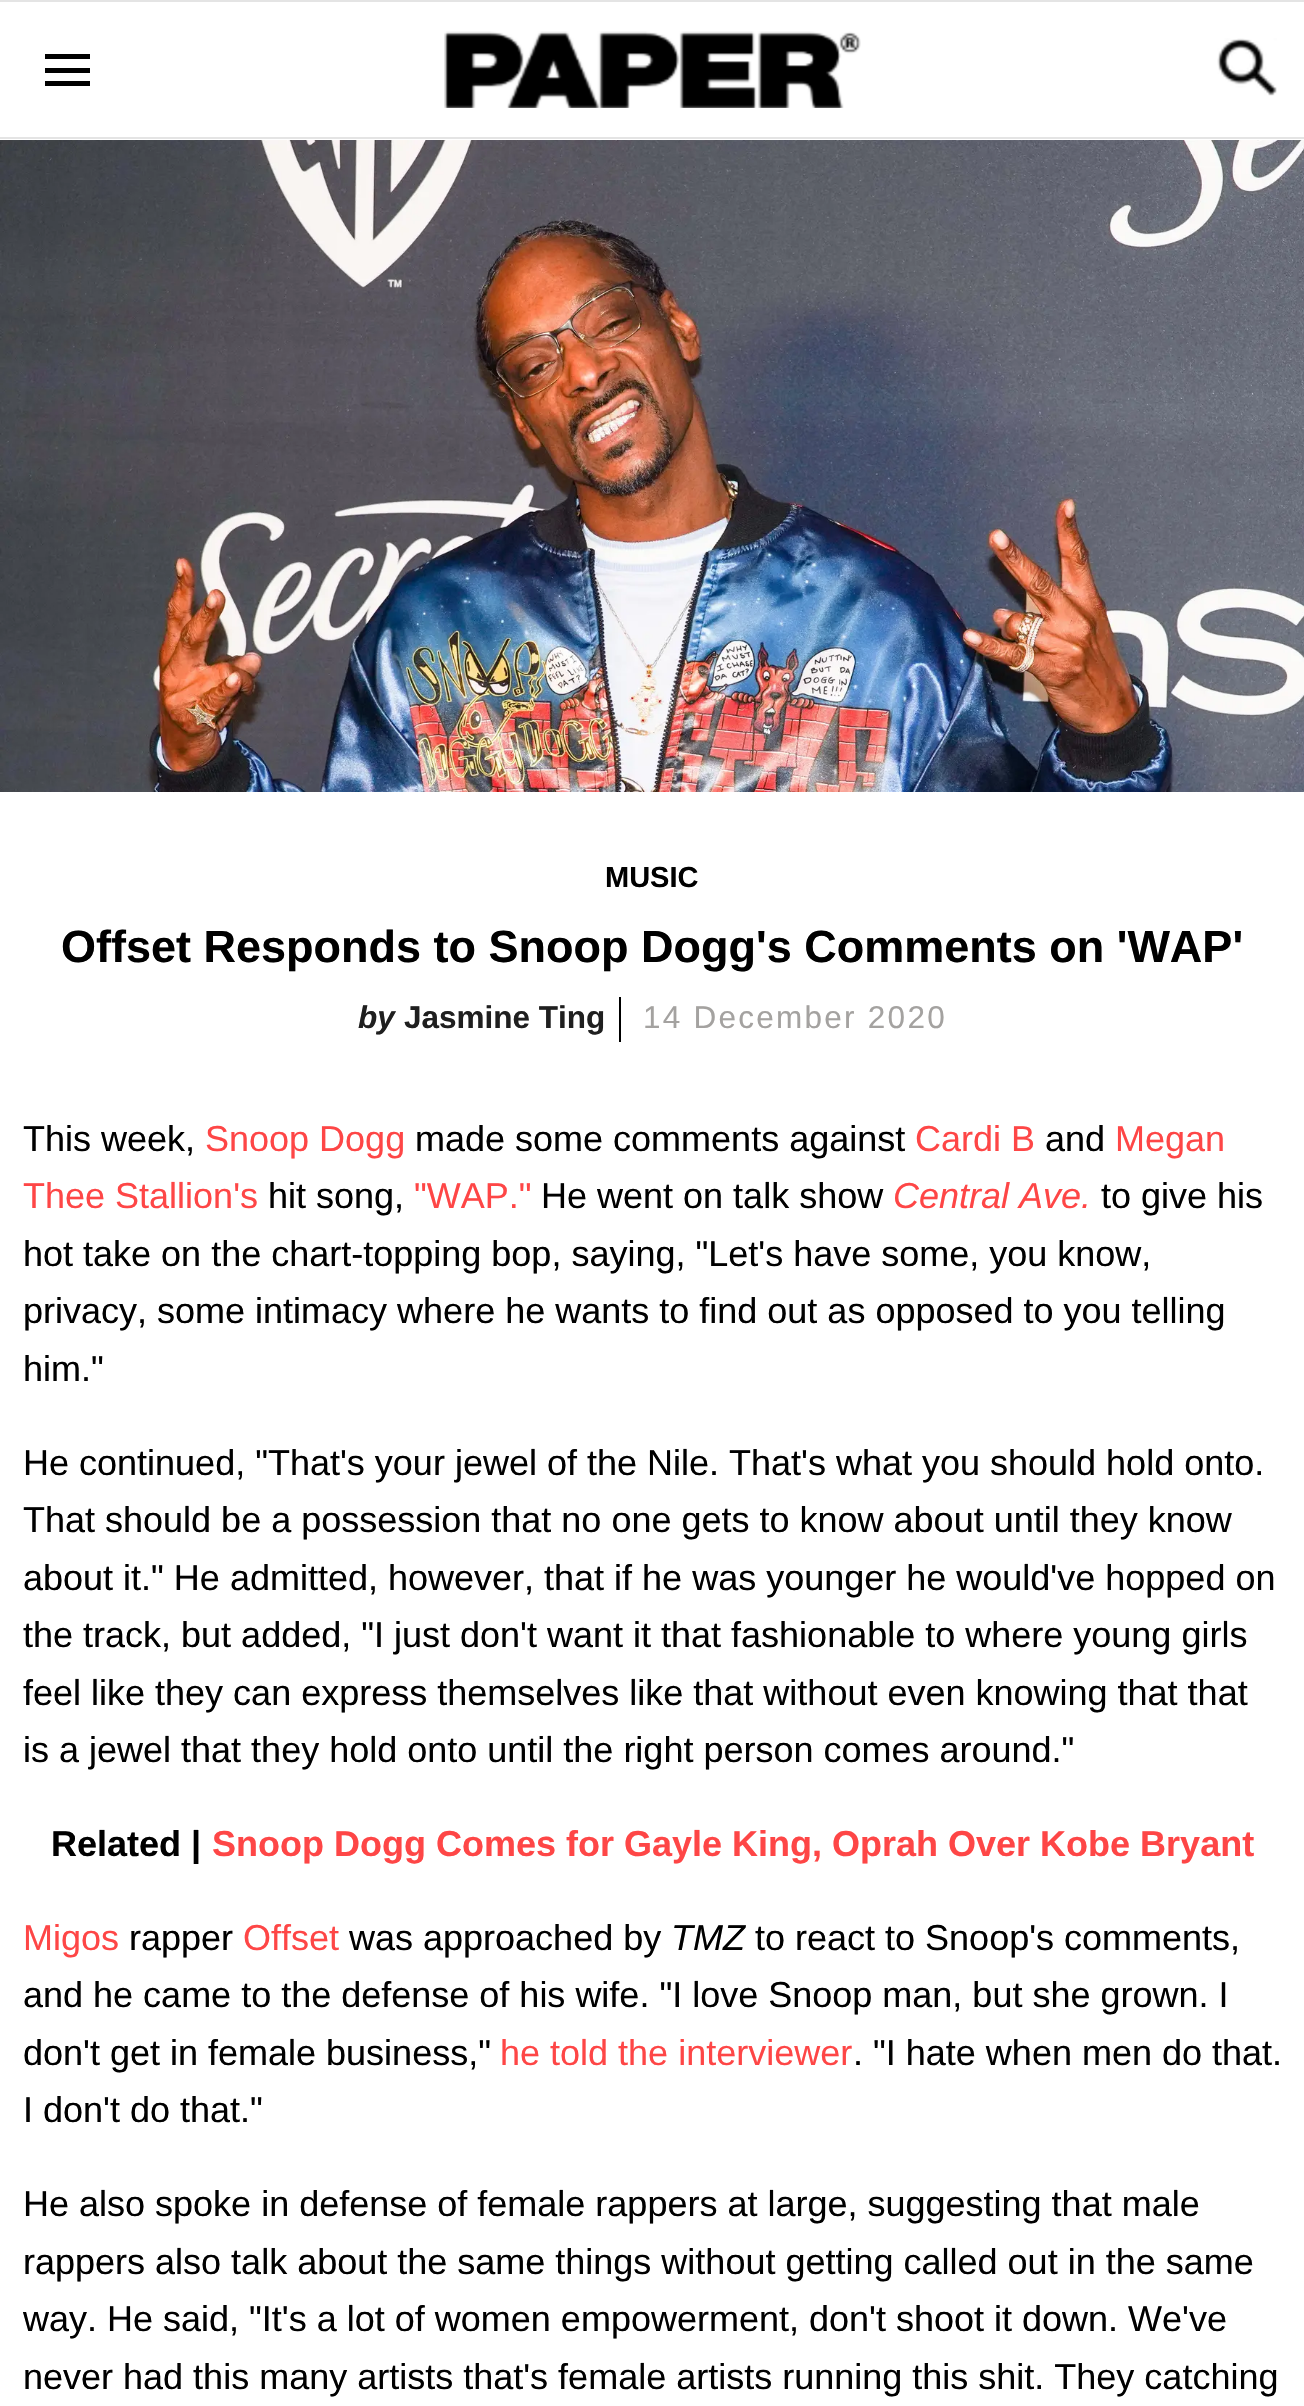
static SkFont makeFont(const char* family, int weight, float size, bool italic = false) {
  SkFontStyle style(weight, SkFontStyle::kNormal_Width,
    italic ? SkFontStyle::kItalic_Slant : SkFontStyle::kUpright_Slant);
  SkFont result(fontMgr->matchFamilyStyle(family, style), size);
  result.setSubpixel(true);
  return result;
}

static void text(SkCanvas* c, const char* s, float x, float y, const SkFont& font, SkColor color) {
  SkPaint ink(SkColor4f::FromColor(color));
  ink.setAntiAlias(true);
  c->drawString(s, x, y, font, ink);
}

static void spacedText(SkCanvas* c, const char* s, float x, float y, const SkFont& font, const SkPaint& ink, float letter, float word) {
  std::vector<SkGlyphID> glyphs(font.countText(s, strlen(s), SkTextEncoding::kUTF8));
  std::vector<float> xs(glyphs.size());
  font.textToGlyphs(s, strlen(s), SkTextEncoding::kUTF8, glyphs);
  font.getXPos(glyphs, xs, x);
  float extra = 0;
  for (size_t i = 0; i < glyphs.size(); i++) {
    xs[i] += extra;
    extra += letter + word * (glyphs[i] == font.unicharToGlyph(' '));
  }
  c->drawTextBlob(SkTextBlob::MakeFromPosHGlyphs(glyphs, xs, y, font), 0, 0, ink);
}

static void box(SkCanvas* c, float l, float t, float r, float b, SkColor color) {
  SkPaint ink(SkColor4f::FromColor(color));
  ink.setAntiAlias(true);
  c->drawRect(SkRect::MakeLTRB(l, t, r, b), ink);
}

static void picture(SkCanvas* c, const char* path, float l, float t, float r, float b) {
  auto image = SkImages::DeferredFromEncodedData(SkData::MakeFromFileName(path));
  c->drawImageRect(image, SkRect::MakeLTRB(l, t, r, b), SkSamplingOptions());
}

void draw(SkCanvas* c) {
  SkPaint paint;
  paint.setAntiAlias(true);
  c->clear(0xffffffff);
  box(c, 0, 0, 1304, 2, 0xffe4e4e4);
  box(c, 0, 137, 1304, 139, 0xffe4e4e4);
  box(c, 45, 68, 90, 73, 0xff000000);
  box(c, 45, 54, 90, 59, 0xff000000);
  box(c, 45, 81, 90, 86, 0xff000000);
  picture(c, "img_01.png", 444, 31, 861, 108);
  picture(c, "img_02.png", 1217, 38, 1277, 96);
  picture(c, "img_03.png", 0, 140, 1304, 792);
  SkFont face1 = makeFont("Liberation Sans", 700, 29);
  text(c, "MUSIC", 605, 887, face1, 0xff000000);
  SkFont face2 = makeFont("Liberation Sans", 700, 45);
  text(c, "Offset Responds to Snoop Dogg's Comments on 'WAP'", 61, 962, face2, 0xff000000);
  SkFont face3 = makeFont("Liberation Sans", 700, 31.5f, true);
  text(c, "by", 358, 1028, face3, 0xff1f1f1f);
  SkFont face4 = makeFont("Liberation Sans", 700, 31.5f);
  text(c, "Jasmine Ting", 404, 1028, face4, 0xff1f1f1f);
  box(c, 619, 997, 621, 1042, 0xff000000);
  SkFont face5 = makeFont("Liberation Sans", 400, 31.5f);
  paint.setColor(0xffa4a2a0);
  spacedText(c, "14 December 2020", 643, 1028, face5, paint, 2.25f, 0);
  SkFont face6 = makeFont("Liberation Sans", 400, 36);
  text(c, "This week,", 23, 1151, face6, 0xff000000);
  text(c, "Snoop Dogg", 205, 1151, face6, 0xfffe4646);
  text(c, "made some comments against", 415, 1151, face6, 0xff000000);
  text(c, "Cardi B", 915, 1151, face6, 0xfffe4646);
  text(c, "and", 1045, 1151, face6, 0xff000000);
  text(c, "Megan", 1115, 1151, face6, 0xfffe4646);
  text(c, "Thee Stallion's", 23, 1208, face6, 0xfffe4646);
  text(c, "hit song,", 268, 1208, face6, 0xff000000);
  text(c, "\"WAP.\"", 414, 1208, face6, 0xfffe4646);
  text(c, "He went on talk show", 541, 1208, face6, 0xff000000);
  SkFont face7 = makeFont("Liberation Sans", 400, 36, true);
  text(c, "Central Ave.", 893, 1208, face7, 0xfffe4646);
  text(c, "to give his", 1101, 1208, face6, 0xff000000);
  text(c, "hot take on the chart-topping bop, saying, \"Let's have some, you know,", 23, 1266, face6, 0xff000000);
  text(c, "privacy, some intimacy where he wants to find out as opposed to you telling", 23, 1323, face6, 0xff000000);
  text(c, "him.\"", 23, 1381, face6, 0xff000000);
  text(c, "He continued, \"That's your jewel of the Nile. That's what you should hold onto.", 23, 1475, face6, 0xff000000);
  text(c, "That should be a possession that no one gets to know about until they know", 23, 1532, face6, 0xff000000);
  text(c, "about it.\" He admitted, however, that if he was younger he would've hopped on", 23, 1590, face6, 0xff000000);
  text(c, "the track, but added, \"I just don't want it that fashionable to where young girls", 23, 1647, face6, 0xff000000);
  text(c, "feel like they can express themselves like that without even knowing that that", 23, 1705, face6, 0xff000000);
  text(c, "is a jewel that they hold onto until the right person comes around.\"", 23, 1762, face6, 0xff000000);
  SkFont face8 = makeFont("Liberation Sans", 700, 36);
  text(c, "Related |", 51, 1856, face8, 0xff000000);
  text(c, "Snoop Dogg Comes for Gayle King, Oprah Over Kobe Bryant", 212, 1856, face8, 0xfffe4646);
  text(c, "Migos", 23, 1950, face6, 0xfffe4646);
  text(c, "rapper", 129, 1950, face6, 0xff000000);
  text(c, "Offset", 243, 1950, face6, 0xfffe4646);
  text(c, "was approached by", 349, 1950, face6, 0xff000000);
  text(c, "TMZ", 671, 1950, face7, 0xff000000);
  text(c, "to react to Snoop's comments,", 755, 1950, face6, 0xff000000);
  text(c, "and he came to the defense of his wife. \"I love Snoop man, but she grown. I", 23, 2007, face6, 0xff000000);
  text(c, "don't get in female business,\"", 23, 2065, face6, 0xff000000);
  text(c, "he told the interviewer", 500, 2065, face6, 0xfffe4646);
  text(c, ". \"I hate when men do that.", 853, 2065, face6, 0xff000000);
  text(c, "I don't do that.\"", 23, 2122, face6, 0xff000000);
  text(c, "He also spoke in defense of female rappers at large, suggesting that male", 23, 2216, face6, 0xff000000);
  text(c, "rappers also talk about the same things without getting called out in the same", 23, 2274, face6, 0xff000000);
  text(c, "way. He said, \"It's a lot of women empowerment, don't shoot it down. We've", 23, 2331, face6, 0xff000000);
  text(c, "never had this many artists that's female artists running this shit. They catching", 23, 2389, face6, 0xff000000);
}
